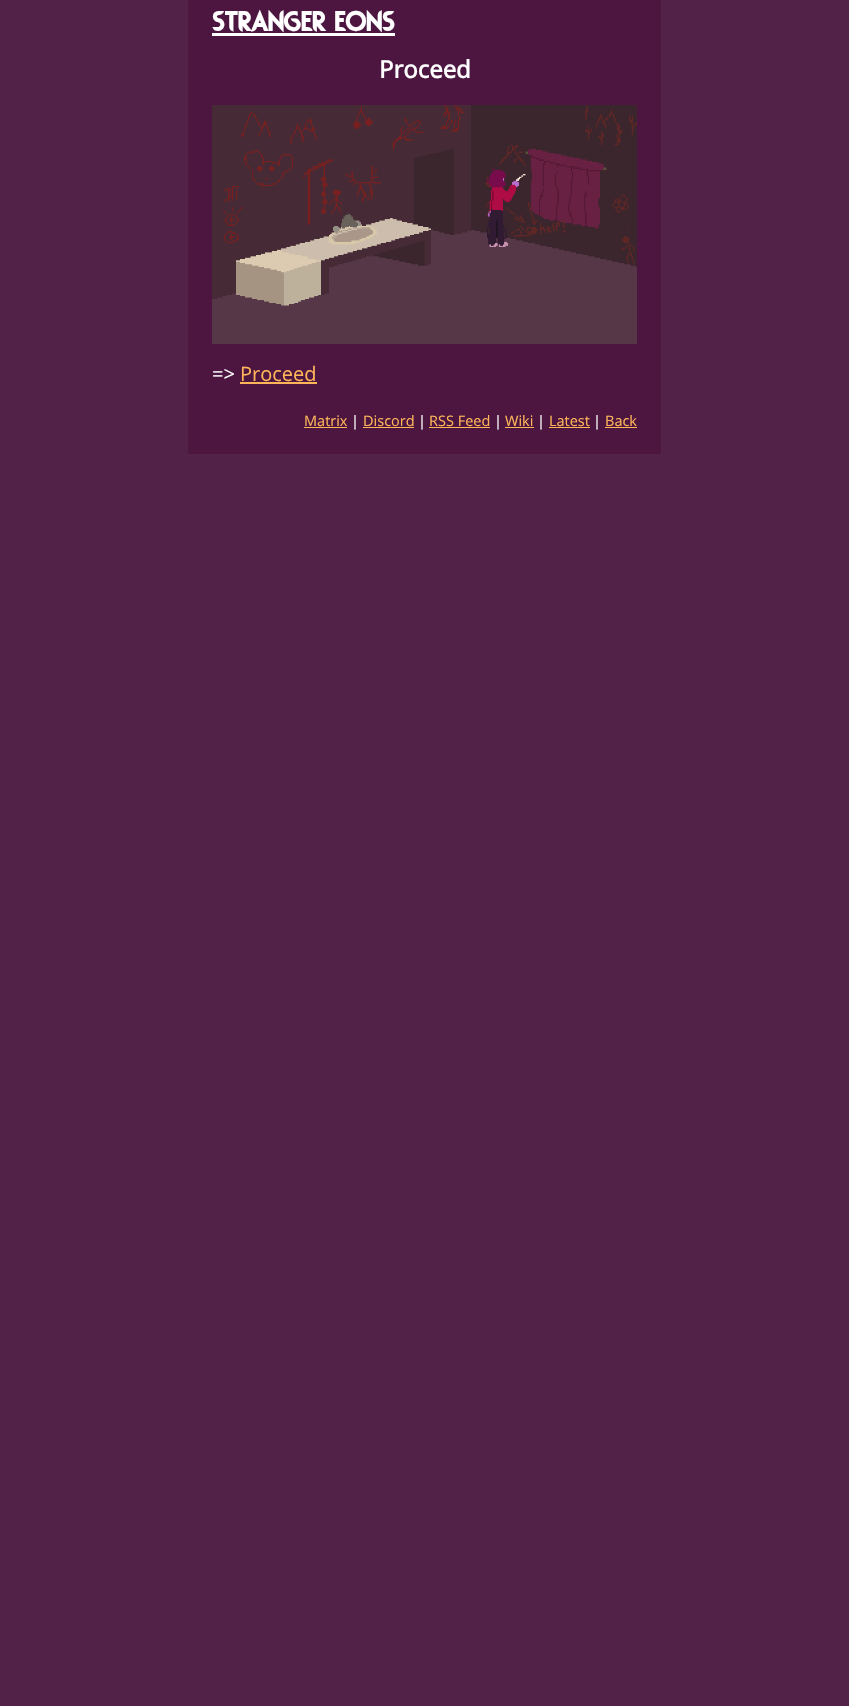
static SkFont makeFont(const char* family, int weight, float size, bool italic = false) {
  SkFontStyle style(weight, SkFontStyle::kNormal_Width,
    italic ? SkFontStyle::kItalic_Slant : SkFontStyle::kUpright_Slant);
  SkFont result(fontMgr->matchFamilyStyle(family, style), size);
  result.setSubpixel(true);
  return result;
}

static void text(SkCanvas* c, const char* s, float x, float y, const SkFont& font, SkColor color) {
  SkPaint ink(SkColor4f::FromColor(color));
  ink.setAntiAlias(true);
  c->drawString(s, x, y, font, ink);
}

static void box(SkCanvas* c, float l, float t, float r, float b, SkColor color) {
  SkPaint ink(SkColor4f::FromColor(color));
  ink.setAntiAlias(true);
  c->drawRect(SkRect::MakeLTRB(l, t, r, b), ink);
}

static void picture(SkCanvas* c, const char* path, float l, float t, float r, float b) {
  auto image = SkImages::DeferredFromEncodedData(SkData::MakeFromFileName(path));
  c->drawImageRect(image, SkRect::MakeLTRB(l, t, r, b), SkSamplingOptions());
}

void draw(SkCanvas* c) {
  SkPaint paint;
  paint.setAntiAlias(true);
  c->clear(0xff522248);
  box(c, 188, 0, 661, 454, 0xff4d1641);
  SkFont face1 = makeFont("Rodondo", 700, 32);
  text(c, "STRANGER EONS", 212, 31, face1, 0xffffffff);
  box(c, 212, 33, 395, 36, 0xffffffff);
  SkFont face2 = makeFont("Open Sans", 700, 24);
  text(c, "Proceed", 379, 78, face2, 0xffffffff);
  picture(c, "img_01.png", 212, 105, 637, 344);
  SkFont face3 = makeFont("Open Sans", 400, 20);
  text(c, "=>", 212, 381, face3, 0xffffffff);
  text(c, "Proceed", 240, 381, face3, 0xffffb659);
  box(c, 240, 382, 317, 384, 0xffffb659);
  SkFont face4 = makeFont("Open Sans", 400, 14.5f);
  text(c, "Matrix", 304, 426, face4, 0xffffb659);
  box(c, 304, 427, 347, 428, 0xffffb659);
  text(c, "|", 351, 426, face4, 0xffffffff);
  text(c, "Discord", 363, 426, face4, 0xffffb659);
  box(c, 363, 427, 414, 428, 0xffffb659);
  text(c, "|", 418, 426, face4, 0xffffffff);
  text(c, "RSS Feed", 429, 426, face4, 0xffffb659);
  box(c, 429, 427, 490, 428, 0xffffb659);
  text(c, "|", 494, 426, face4, 0xffffffff);
  text(c, "Wiki", 505, 426, face4, 0xffffb659);
  box(c, 505, 427, 534, 428, 0xffffb659);
  text(c, "|", 537, 426, face4, 0xffffffff);
  text(c, "Latest", 549, 426, face4, 0xffffb659);
  box(c, 549, 427, 590, 428, 0xffffb659);
  text(c, "|", 593, 426, face4, 0xffffffff);
  text(c, "Back", 605, 426, face4, 0xffffb659);
  box(c, 605, 427, 637, 428, 0xffffb659);
}
